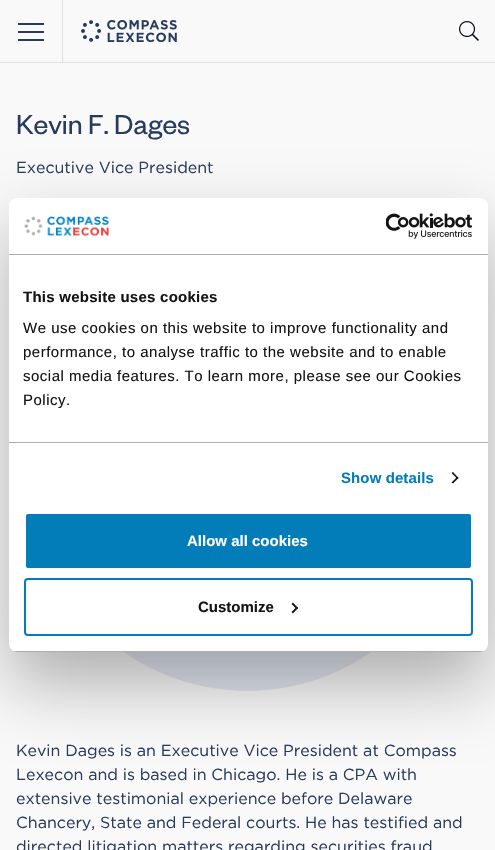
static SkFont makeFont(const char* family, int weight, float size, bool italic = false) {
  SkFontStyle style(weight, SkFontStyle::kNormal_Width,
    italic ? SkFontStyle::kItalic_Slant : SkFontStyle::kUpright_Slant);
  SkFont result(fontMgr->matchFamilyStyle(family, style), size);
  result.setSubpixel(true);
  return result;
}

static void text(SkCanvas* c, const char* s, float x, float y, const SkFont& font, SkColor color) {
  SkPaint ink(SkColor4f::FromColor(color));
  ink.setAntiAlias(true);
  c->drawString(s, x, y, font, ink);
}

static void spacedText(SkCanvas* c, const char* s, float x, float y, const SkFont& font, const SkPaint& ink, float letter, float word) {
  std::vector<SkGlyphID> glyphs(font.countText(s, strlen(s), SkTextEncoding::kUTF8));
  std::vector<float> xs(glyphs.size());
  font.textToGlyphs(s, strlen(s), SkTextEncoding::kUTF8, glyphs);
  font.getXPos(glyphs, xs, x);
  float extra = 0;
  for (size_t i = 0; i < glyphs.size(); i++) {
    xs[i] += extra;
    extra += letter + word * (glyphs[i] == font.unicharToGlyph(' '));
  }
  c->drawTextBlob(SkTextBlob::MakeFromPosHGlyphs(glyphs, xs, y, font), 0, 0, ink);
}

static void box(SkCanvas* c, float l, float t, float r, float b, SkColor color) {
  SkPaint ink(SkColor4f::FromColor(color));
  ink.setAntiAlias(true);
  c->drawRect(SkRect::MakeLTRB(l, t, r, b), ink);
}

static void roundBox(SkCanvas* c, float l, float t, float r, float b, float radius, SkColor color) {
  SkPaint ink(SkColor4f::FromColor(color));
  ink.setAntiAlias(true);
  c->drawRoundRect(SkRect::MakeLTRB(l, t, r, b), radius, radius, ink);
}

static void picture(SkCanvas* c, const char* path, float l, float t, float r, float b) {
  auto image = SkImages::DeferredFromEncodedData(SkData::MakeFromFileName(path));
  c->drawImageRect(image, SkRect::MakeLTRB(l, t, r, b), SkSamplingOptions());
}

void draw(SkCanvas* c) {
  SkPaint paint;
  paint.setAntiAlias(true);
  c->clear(0xfffaf9f9);
  box(c, 62, 0, 63, 62, 0xffe1e0e0);
  box(c, 18, 23, 44, 25, 0xff273b5e);
  box(c, 18, 31, 44, 33, 0xff273b5e);
  box(c, 18, 39, 44, 41, 0xff273b5e);
  picture(c, "img_01.png", 81, 20, 177, 42);
  picture(c, "img_02.png", 459, 21, 479, 41);
  box(c, 0, 62, 495, 63, 0xffe1e0e0);
  SkFont face1 = makeFont("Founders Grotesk", 400, 30);
  text(c, "Kevin F. Dages", 16, 134, face1, 0xff273b5e);
  SkFont face2 = makeFont("Gotham", 400, 16);
  text(c, "Executive Vice President", 16, 173, face2, 0xff273b5e);
  paint.setColor(0xffe2e8f0);
  c->drawCircle(247.5f, 475.5f, 215.5f, paint);
  text(c, "Kevin Dages is an Executive Vice President at Compass", 16, 756, face2, 0xff273b5e);
  text(c, "Lexecon and is based in Chicago. He is a CPA with", 16, 780, face2, 0xff273b5e);
  text(c, "extensive testimonial experience before Delaware", 16, 804, face2, 0xff273b5e);
  text(c, "Chancery, State and Federal courts. He has testified and", 16, 828, face2, 0xff273b5e);
  text(c, "directed litigation matters regarding securities fraud", 16, 852, face2, 0xff273b5e);
  paint.setColor(0x4d000000);
  paint.setMaskFilter(SkMaskFilter::MakeBlur(kNormal_SkBlurStyle, 34));
  c->drawRoundRect(SkRect::MakeLTRB(9, 230, 488, 684), 8, 8, paint);
  paint.setMaskFilter(nullptr);
  roundBox(c, 9, 198, 488, 652, 8, 0xffffffff);
  box(c, 9, 254, 488, 255, 0xffacacac);
  picture(c, "img_03.png", 24, 216, 109, 237);
  picture(c, "img_04.png", 386, 213, 472, 239);
  box(c, 9, 442, 488, 443, 0xffacacac);
  SkFont face3 = makeFont("Liberation Sans", 700, 15);
  paint.setColor(0xff141414);
  spacedText(c, "This website uses cookies", 23, 302, face3, paint, 0.25f, 0);
  SkFont face4 = makeFont("Liberation Sans", 400, 15);
  spacedText(c, "We use cookies on this website to improve functionality and", 23, 333, face4, paint, 0.5f, 0);
  spacedText(c, "performance, to analyse traffic to the website and to enable", 23, 357, face4, paint, 0.5f, 0);
  spacedText(c, "social media features. To learn more, please see our Cookies", 23, 381, face4, paint, 0.5f, 0);
  spacedText(c, "Policy.", 23, 405, face4, paint, 0.5f, 0);
  paint.setColor(0xff037cba);
  spacedText(c, "Show details", 341, 483, face3, paint, 0.1f, 0);
  paint.setColor(0xff141414);
  c->drawPath(SkPathBuilder().moveTo(453, 472).lineTo(458.5f, 478).lineTo(457.5f, 479).lineTo(451.5f, 473).close().detach(), paint);
  c->drawPath(SkPathBuilder().moveTo(457.5f, 476.5f).lineTo(458.5f, 478).lineTo(453, 483.5f).lineTo(451.5f, 482.5f).close().detach(), paint);
  c->save();
  c->clipPath(SkPathBuilder().moveTo(17, 198).lineTo(480, 198).cubicTo(484.5f, 198, 488, 201.5f, 488, 206).lineTo(488, 644).cubicTo(488, 648.5f, 484.5f, 652, 480, 652).lineTo(17, 652).cubicTo(12.5f, 652, 9, 648.5f, 9, 644).lineTo(9, 206).cubicTo(9, 201.5f, 12.5f, 198, 17, 198).close().detach(), true);
  box(c, 9, 651, 488, 652, 0xffacacac);
  c->restore();
  paint.setColor(0xff037cba);
  c->drawRoundRect(SkRect::MakeLTRB(25, 513, 472, 569), 3, 3, paint);
  paint.setStyle(SkPaint::kStroke_Style);
  paint.setStrokeWidth(2);
  paint.setColor(0xffffffff);
  c->drawRoundRect(SkRect::MakeLTRB(25, 513, 472, 569), 3, 3, paint);
  text(c, "Allow all cookies", 187, 546, face3, 0xffffffff);
  paint.setColor(0xff037cba);
  c->drawRoundRect(SkRect::MakeLTRB(25, 579, 472, 635), 3, 3, paint);
  text(c, "Customize", 198, 612, face3, 0xff141414);
  paint.setStyle(SkPaint::kFill_Style);
  paint.setColor(0xff141414);
  c->drawPath(SkPathBuilder().moveTo(293, 602.5f).lineTo(298, 608).lineTo(297, 609.5f).lineTo(291.5f, 604).close().detach(), paint);
  c->drawPath(SkPathBuilder().moveTo(297, 606.5f).lineTo(298, 608).lineTo(293, 613.5f).lineTo(291.5f, 612).close().detach(), paint);
}
